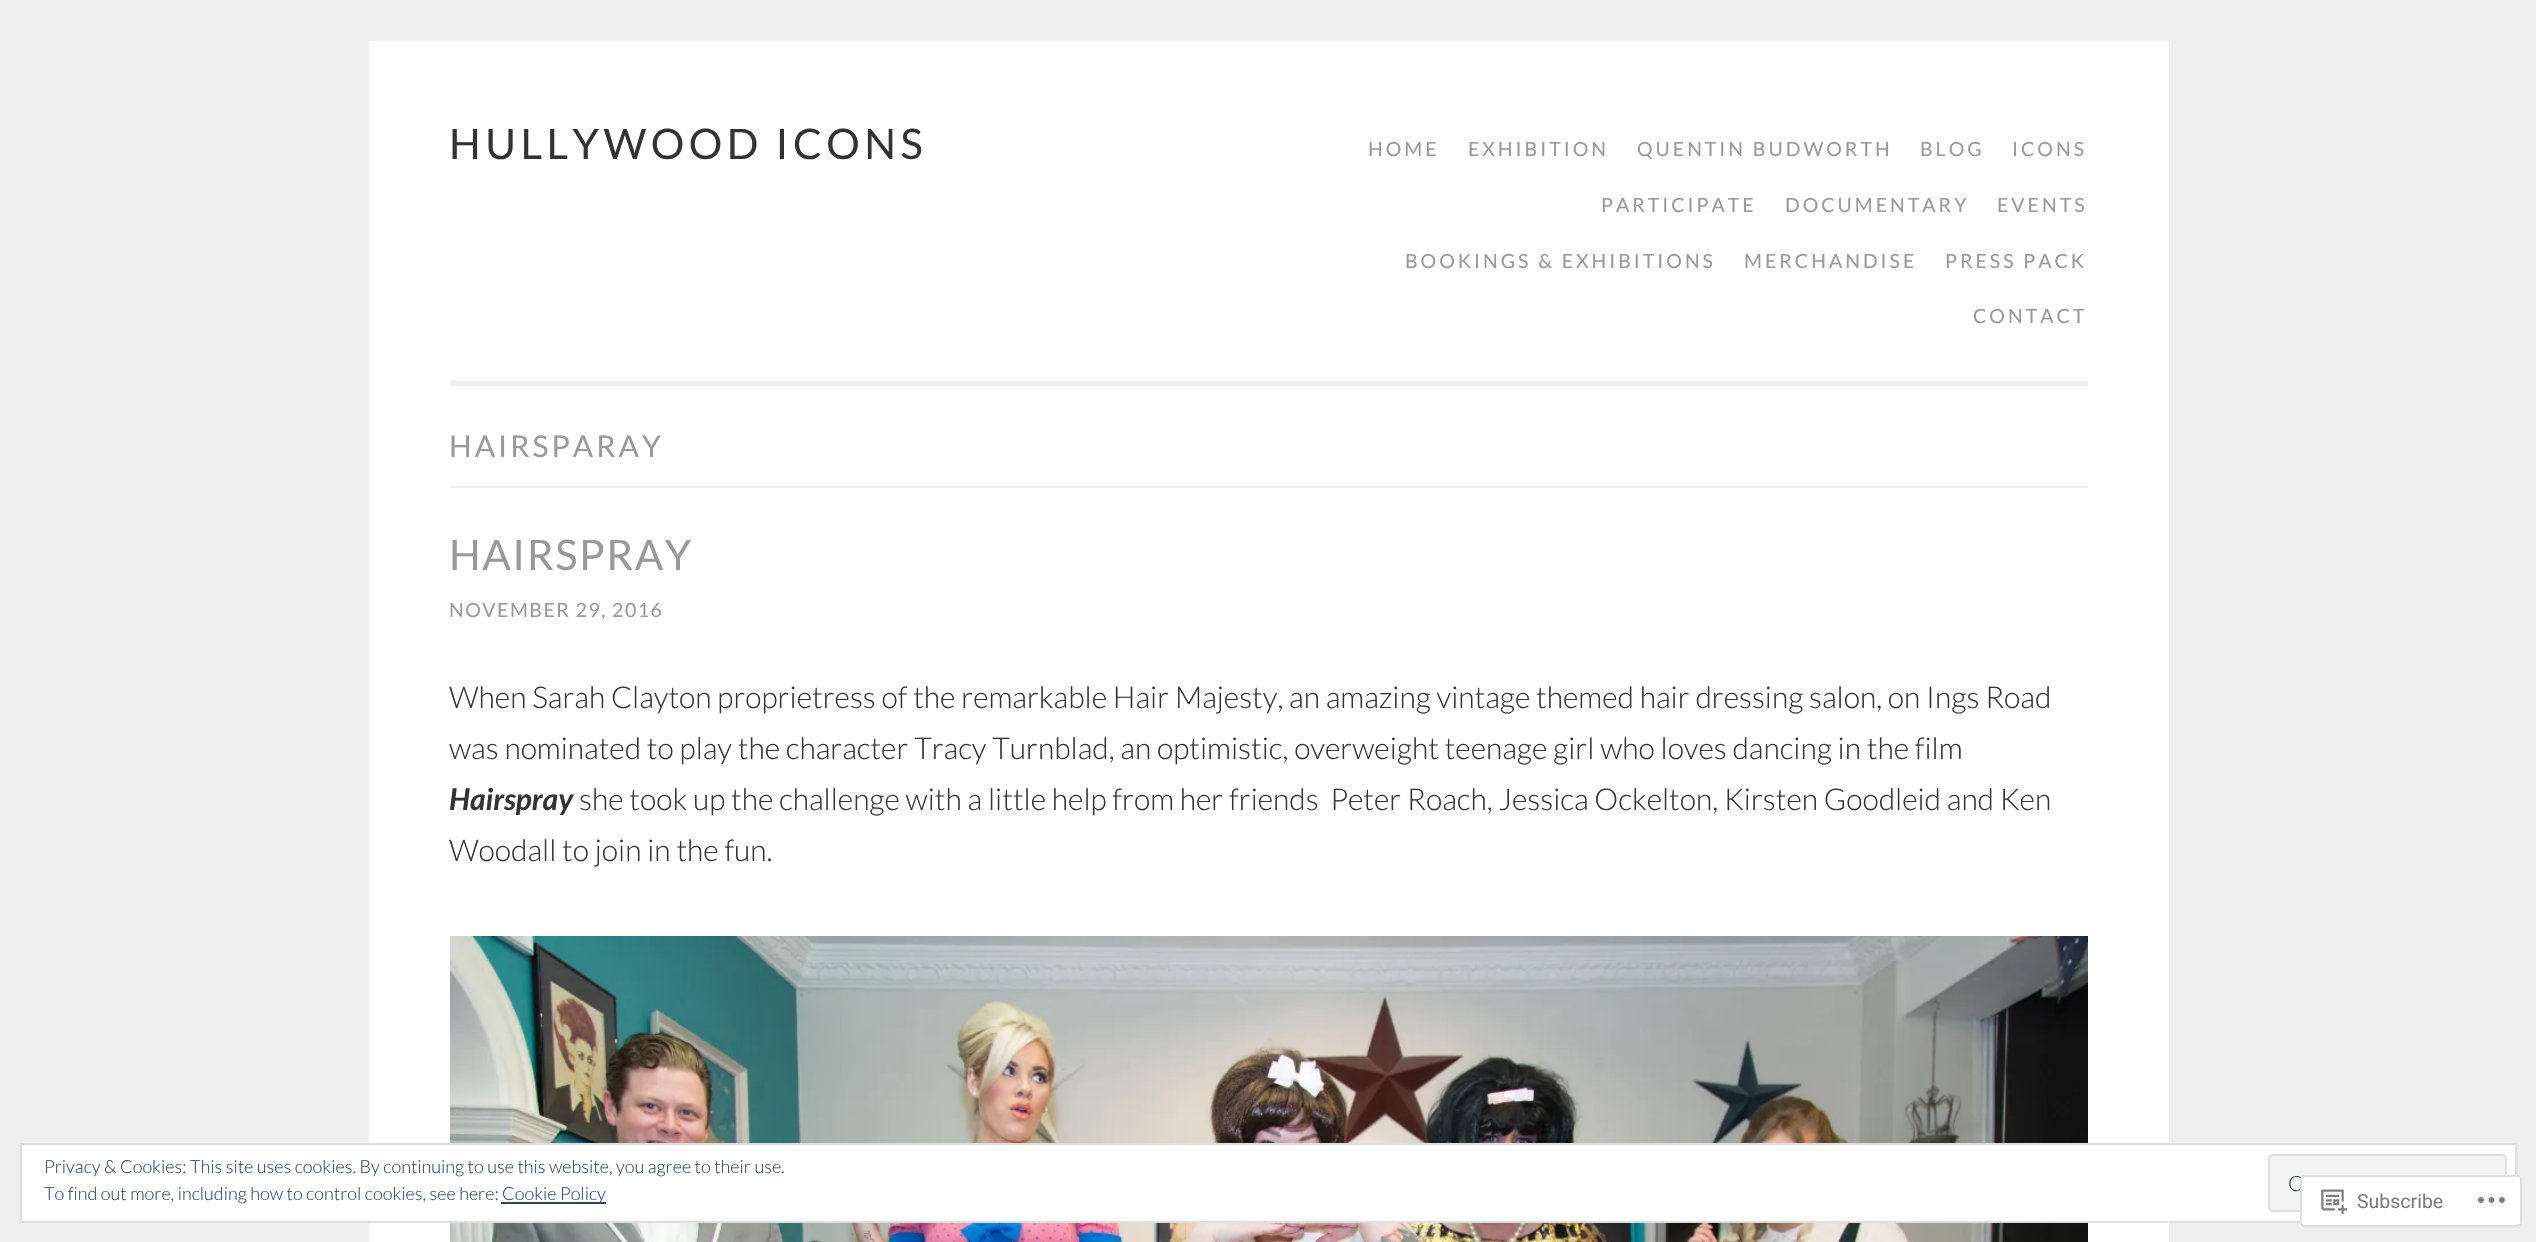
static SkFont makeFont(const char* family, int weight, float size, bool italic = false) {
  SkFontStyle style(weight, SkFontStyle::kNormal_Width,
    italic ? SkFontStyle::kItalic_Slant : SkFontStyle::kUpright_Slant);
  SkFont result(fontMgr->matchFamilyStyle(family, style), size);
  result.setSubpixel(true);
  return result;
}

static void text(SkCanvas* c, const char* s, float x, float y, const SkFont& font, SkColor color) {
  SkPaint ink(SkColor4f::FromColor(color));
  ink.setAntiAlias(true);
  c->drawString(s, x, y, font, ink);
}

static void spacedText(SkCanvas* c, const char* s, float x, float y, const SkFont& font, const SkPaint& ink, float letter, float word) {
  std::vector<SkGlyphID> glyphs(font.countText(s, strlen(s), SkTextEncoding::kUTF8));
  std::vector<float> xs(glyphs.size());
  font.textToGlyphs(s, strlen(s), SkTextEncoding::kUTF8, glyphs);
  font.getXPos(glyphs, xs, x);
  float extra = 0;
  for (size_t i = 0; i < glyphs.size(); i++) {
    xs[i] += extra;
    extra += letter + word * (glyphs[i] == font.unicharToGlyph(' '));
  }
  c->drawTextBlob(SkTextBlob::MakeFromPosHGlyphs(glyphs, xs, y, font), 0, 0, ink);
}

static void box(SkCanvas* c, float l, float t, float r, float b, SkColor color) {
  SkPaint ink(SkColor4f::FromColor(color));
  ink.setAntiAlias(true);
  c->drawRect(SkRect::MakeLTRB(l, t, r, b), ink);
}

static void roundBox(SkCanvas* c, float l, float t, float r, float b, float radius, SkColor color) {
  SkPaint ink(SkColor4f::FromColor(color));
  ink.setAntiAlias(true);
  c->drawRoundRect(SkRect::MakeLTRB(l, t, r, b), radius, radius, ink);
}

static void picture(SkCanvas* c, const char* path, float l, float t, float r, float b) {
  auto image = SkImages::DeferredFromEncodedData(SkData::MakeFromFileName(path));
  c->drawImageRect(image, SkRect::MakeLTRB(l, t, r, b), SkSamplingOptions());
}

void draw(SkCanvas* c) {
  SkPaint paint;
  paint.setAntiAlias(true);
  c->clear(0xffeeeeee);
  box(c, 369, 41, 2169, 1242, 0xffffffff);
  box(c, 450, 381, 2088, 386, 0xffeeeeee);
  SkFont face1 = makeFont("Lato", 400, 42);
  paint.setColor(0xff333333);
  spacedText(c, "HULLYWOOD ICONS", 449, 159, face1, paint, 4.5f, 0);
  SkFont face2 = makeFont("Lato", 400, 19.5f);
  paint.setColor(0xff999999);
  spacedText(c, "HOME", 1368, 156, face2, paint, 3, 0);
  spacedText(c, "EXHIBITION", 1468, 156, face2, paint, 3, 0);
  spacedText(c, "QUENTIN BUDWORTH", 1637, 156, face2, paint, 3, 0);
  spacedText(c, "BLOG", 1920, 156, face2, paint, 3, 0);
  spacedText(c, "ICONS", 2012, 156, face2, paint, 3, 0);
  spacedText(c, "PARTICIPATE", 1601, 212, face2, paint, 3, 0);
  spacedText(c, "DOCUMENTARY", 1785, 212, face2, paint, 3, 0);
  spacedText(c, "EVENTS", 1997, 212, face2, paint, 3, 0);
  spacedText(c, "BOOKINGS & EXHIBITIONS", 1405, 268, face2, paint, 3, 0);
  spacedText(c, "MERCHANDISE", 1744, 268, face2, paint, 3, 0);
  spacedText(c, "PRESS PACK", 1945, 268, face2, paint, 3, 0);
  spacedText(c, "CONTACT", 1973, 323, face2, paint, 3, 0);
  box(c, 450, 486, 2088, 488, 0xffeeeeee);
  SkFont face3 = makeFont("Lato", 400, 30);
  spacedText(c, "HAIRSPARAY", 449, 457, face3, paint, 3, 0);
  spacedText(c, "HAIRSPRAY", 449, 570, face1, paint, 1.5f, 0);
  spacedText(c, "NOVEMBER 29, 2016", 449, 617, face2, paint, 1.5f, 0);
  SkFont face4 = makeFont("Lato", 300, 30);
  text(c, "When Sarah Clayton proprietress of the remarkable Hair Majesty, an amazing vintage themed hair dressing salon, on Ings Road", 449, 708, face4, 0xff333333);
  text(c, "was nominated to play the character Tracy Turnblad, an optimistic, overweight teenage girl who loves dancing in the film", 449, 759, face4, 0xff333333);
  SkFont face5 = makeFont("Lato", 700, 30, true);
  text(c, "Hairspray", 449, 810, face5, 0xff333333);
  text(c, "she took up the challenge with a little help from her friends  Peter Roach, Jessica Ockelton, Kirsten Goodleid and Ken", 579, 810, face4, 0xff333333);
  text(c, "Woodall to join in the fun.", 449, 861, face4, 0xff333333);
  picture(c, "img_01.png", 450, 936, 2088, 1242);
  paint.setColor(0xffffffff);
  c->drawRect(SkRect::MakeLTRB(21, 1144, 2516, 1222), paint);
  paint.setStyle(SkPaint::kStroke_Style);
  paint.setStrokeWidth(2);
  paint.setColor(0xffdedede);
  c->drawRect(SkRect::MakeLTRB(21, 1144, 2516, 1222), paint);
  SkFont face6 = makeFont("Lato", 300, 18);
  text(c, "Privacy & Cookies: This site uses cookies. By continuing to use this website, you agree to their use.", 44, 1173, face6, 0xff2e4467);
  paint.setStyle(SkPaint::kFill_Style);
  paint.setColor(0xfff3f3f3);
  c->drawRoundRect(SkRect::MakeLTRB(2269, 1155, 2506, 1211), 4, 4, paint);
  paint.setStyle(SkPaint::kStroke_Style);
  paint.setColor(0xffdedede);
  c->drawRoundRect(SkRect::MakeLTRB(2269, 1155, 2506, 1211), 4, 4, paint);
  SkFont face7 = makeFont("Lato", 300, 21);
  paint.setStyle(SkPaint::kFill_Style);
  paint.setColor(0xff2e4453);
  spacedText(c, "C", 2288, 1191, face7, paint, 3, 0);
  text(c, "To find out more, including how to control cookies, see here:", 44, 1200, face6, 0xff2e4467);
  box(c, 501, 1202, 606, 1204, 0xff2e4467);
  text(c, "Cookie Policy", 502, 1200, face6, 0xff2e4467);
  roundBox(c, 2300, 1175, 2522, 1227, 5, 0xfaffffff);
  paint.setStyle(SkPaint::kStroke_Style);
  paint.setColor(0xfadcdcde);
  c->drawRoundRect(SkRect::MakeLTRB(2301, 1176, 2521, 1226), 4, 4, paint);
  picture(c, "img_02.png", 2321, 1189, 2348, 1214);
  SkFont face8 = makeFont("Roboto", 400, 19.5f);
  text(c, "Subscribe", 2357, 1208, face8, 0xff7a7e84);
  picture(c, "img_03.png", 2478, 1197, 2505, 1203);
}
